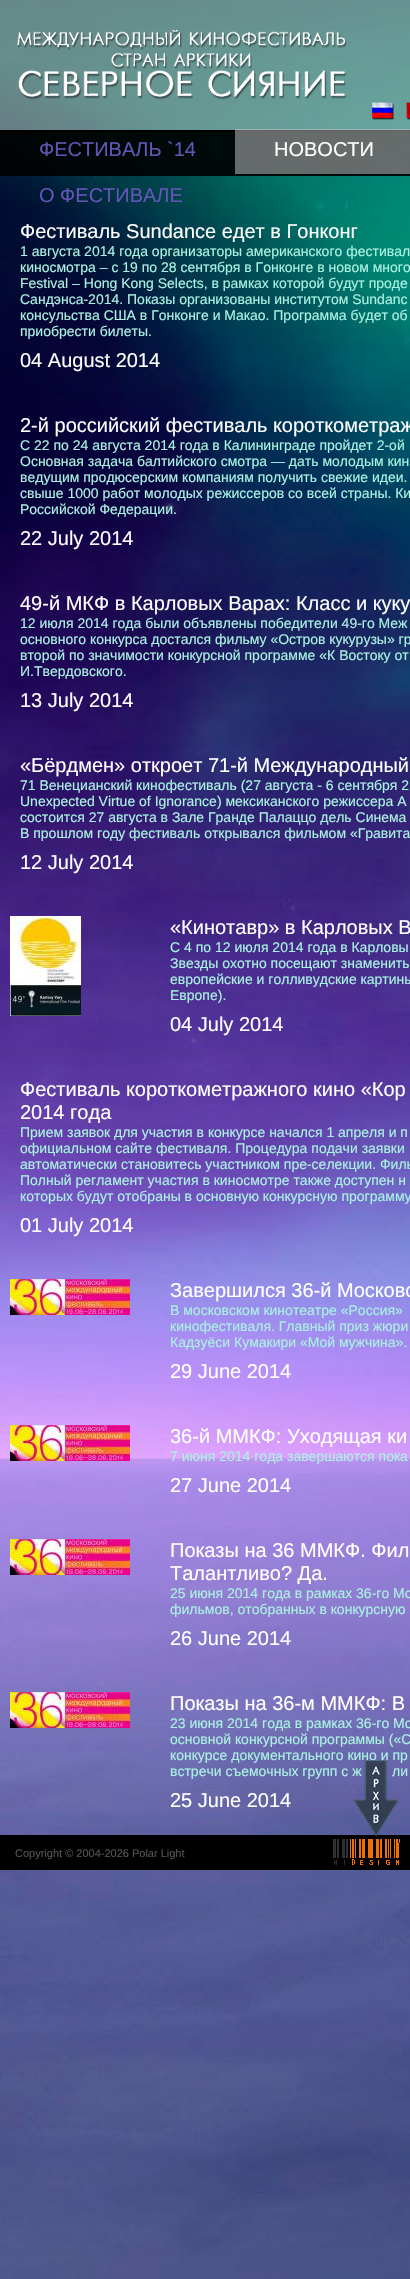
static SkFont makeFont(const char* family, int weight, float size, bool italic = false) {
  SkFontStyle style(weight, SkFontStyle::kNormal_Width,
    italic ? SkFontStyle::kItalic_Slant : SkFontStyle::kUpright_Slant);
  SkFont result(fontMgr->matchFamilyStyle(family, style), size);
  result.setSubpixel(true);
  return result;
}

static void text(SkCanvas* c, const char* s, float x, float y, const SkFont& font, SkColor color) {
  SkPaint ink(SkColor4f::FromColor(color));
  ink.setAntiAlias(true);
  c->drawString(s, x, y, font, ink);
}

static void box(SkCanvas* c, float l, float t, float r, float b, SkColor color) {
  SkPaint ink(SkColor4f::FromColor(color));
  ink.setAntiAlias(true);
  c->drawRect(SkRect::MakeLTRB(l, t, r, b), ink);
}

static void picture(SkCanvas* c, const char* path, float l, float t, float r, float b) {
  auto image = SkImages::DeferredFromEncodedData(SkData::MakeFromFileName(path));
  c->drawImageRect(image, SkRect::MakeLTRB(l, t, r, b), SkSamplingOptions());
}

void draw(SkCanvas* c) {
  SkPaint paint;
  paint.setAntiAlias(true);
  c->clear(0xffffffff);
  picture(c, "img_01.png", 0, 0, 410, 2279);
  picture(c, "img_02.png", 0, 0, 410, 176);
  box(c, 0, 1835, 410, 1870, 0xff000000);
  picture(c, "img_03.png", 17, 30, 347, 100);
  picture(c, "img_04.png", 372, 102, 410, 120);
  SkFont face1 = makeFont("Liberation Sans", 400, 20);
  text(c, "ФЕСТИВАЛЬ `14", 39, 156, face1, 0xff6355b5);
  box(c, 235, 129, 410, 174, 0x80cbcbcb);
  text(c, "НОВОСТИ", 274, 156, face1, 0xffffffff);
  text(c, "О ФЕСТИВАЛЕ", 39, 202, face1, 0xff6355b5);
  text(c, "Фестиваль Sundance едет в Гонконг", 20, 238, face1, 0xffffffff);
  SkFont face2 = makeFont("Liberation Sans", 400, 14);
  text(c, "1 августа 2014 года организаторы американского фестивал", 20, 256, face2, 0xffa9f1e2);
  text(c, "киносмотра – с 19 по 28 сентября в Гонконге в новом много", 20, 272, face2, 0xffa9f1e2);
  text(c, "Festival – Hong Kong Selects, в рамках которой будут проде", 20, 288, face2, 0xffa9f1e2);
  text(c, "Сандэнса-2014. Показы организованы институтом Sundanc", 20, 304, face2, 0xffa9f1e2);
  text(c, "консульства США в Гонконге и Макао. Программа будет об", 20, 320, face2, 0xffa9f1e2);
  text(c, "приобрести билеты.", 20, 336, face2, 0xffa9f1e2);
  text(c, "04 August 2014", 20, 367, face1, 0xffffffff);
  text(c, "2-й российский фестиваль короткометраж", 20, 432, face1, 0xffffffff);
  text(c, "С 22 по 24 августа 2014 года в Калининграде пройдет 2-ой", 20, 450, face2, 0xffa9f1e2);
  text(c, "Основная задача балтийского смотра — дать молодым кин", 20, 466, face2, 0xffa9f1e2);
  text(c, "ведущим продюсерским компаниям получить свежие идеи.", 20, 482, face2, 0xffa9f1e2);
  text(c, "свыше 1000 работ молодых режиссеров со всей страны. Ки", 20, 498, face2, 0xffa9f1e2);
  text(c, "Российской Федерации.", 20, 514, face2, 0xffa9f1e2);
  text(c, "22 July 2014", 20, 545, face1, 0xffffffff);
  text(c, "49-й МКФ в Карловых Варах: Класс и куку", 20, 610, face1, 0xffffffff);
  text(c, "12 июля 2014 года были объявлены победители 49-го Меж", 20, 628, face2, 0xffa9f1e2);
  text(c, "основного конкурса достался фильму «Остров кукурузы» гр", 20, 644, face2, 0xffa9f1e2);
  text(c, "второй по значимости конкурсной программе «К Востоку от", 20, 660, face2, 0xffa9f1e2);
  text(c, "И.Твердовского.", 20, 676, face2, 0xffa9f1e2);
  text(c, "13 July 2014", 20, 707, face1, 0xffffffff);
  text(c, "«Бёрдмен» откроет 71-й Международный", 20, 772, face1, 0xffffffff);
  text(c, "71 Венецианский кинофестиваль (27 августа - 6 сентября 2", 20, 790, face2, 0xffa9f1e2);
  text(c, "Unexpected Virtue of Ignorance) мексиканского режиссера А", 20, 806, face2, 0xffa9f1e2);
  text(c, "состоится 27 августа в Зале Гранде Палаццо дель Синема", 20, 822, face2, 0xffa9f1e2);
  text(c, "В прошлом году фестиваль открывался фильмом «Гравита", 20, 838, face2, 0xffa9f1e2);
  text(c, "12 July 2014", 20, 869, face1, 0xffffffff);
  picture(c, "img_05.png", 10, 916, 81, 1016);
  text(c, "«Кинотавр» в Карловых В", 170, 934, face1, 0xffffffff);
  text(c, "С 4 по 12 июля 2014 года в Карловы", 170, 952, face2, 0xffa9f1e2);
  text(c, "Звезды охотно посещают знамениты", 170, 968, face2, 0xffa9f1e2);
  text(c, "европейские и голливудские картины", 170, 984, face2, 0xffa9f1e2);
  text(c, "Европе).", 170, 1000, face2, 0xffa9f1e2);
  text(c, "04 July 2014", 170, 1031, face1, 0xffffffff);
  text(c, "Фестиваль короткометражного кино «Кор", 20, 1096, face1, 0xffffffff);
  text(c, "2014 года", 20, 1119, face1, 0xffffffff);
  text(c, "Прием заявок для участия в конкурсе начался 1 апреля и п", 20, 1137, face2, 0xffa9f1e2);
  text(c, "официальном сайте фестиваля. Процедура подачи заявки", 20, 1153, face2, 0xffa9f1e2);
  text(c, "автоматически становитесь участником пре-селекции. Филь", 20, 1169, face2, 0xffa9f1e2);
  text(c, "Полный регламент участия в киносмотре также доступен н", 20, 1185, face2, 0xffa9f1e2);
  text(c, "которых будут отобраны в основную конкурсную программу", 20, 1201, face2, 0xffa9f1e2);
  text(c, "01 July 2014", 20, 1232, face1, 0xffffffff);
  picture(c, "img_06.png", 10, 1279, 130, 1315);
  text(c, "Завершился 36-й Московс", 170, 1297, face1, 0xffffffff);
  text(c, "В московском кинотеатре «Россия»", 170, 1315, face2, 0xffa9f1e2);
  text(c, "кинофестиваля. Главный приз жюри", 170, 1331, face2, 0xffa9f1e2);
  text(c, "Кадзуёси Кумакири «Мой мужчина».", 170, 1347, face2, 0xffa9f1e2);
  text(c, "29 June 2014", 170, 1378, face1, 0xffffffff);
  picture(c, "img_06.png", 10, 1425, 130, 1461);
  text(c, "36-й ММКФ: Уходящая ки", 170, 1443, face1, 0xffffffff);
  text(c, "7 июня 2014 года завершаются пока", 170, 1461, face2, 0xffa9f1e2);
  text(c, "27 June 2014", 170, 1492, face1, 0xffffffff);
  picture(c, "img_06.png", 10, 1539, 130, 1575);
  text(c, "Показы на 36 ММКФ. Фил", 170, 1557, face1, 0xffffffff);
  text(c, "Талантливо? Да.", 170, 1580, face1, 0xffffffff);
  text(c, "25 июня 2014 года в рамках 36-го Мо", 170, 1598, face2, 0xffa9f1e2);
  text(c, "фильмов, отобранных в конкурсную", 170, 1614, face2, 0xffa9f1e2);
  text(c, "26 June 2014", 170, 1645, face1, 0xffffffff);
  picture(c, "img_06.png", 10, 1692, 130, 1728);
  text(c, "Показы на 36-м ММКФ: В", 170, 1710, face1, 0xffffffff);
  text(c, "23 июня 2014 года в рамках 36-го Мо", 170, 1728, face2, 0xffa9f1e2);
  text(c, "основной конкурсной программы («С", 170, 1744, face2, 0xffa9f1e2);
  text(c, "конкурсе документального кино и пр", 170, 1760, face2, 0xffa9f1e2);
  text(c, "встречи съемочных групп с ж", 170, 1776, face2, 0xffa9f1e2);
  text(c, "ли", 392, 1776, face2, 0xffa9f1e2);
  text(c, "25 June 2014", 170, 1807, face1, 0xffffffff);
  picture(c, "img_07.png", 353, 1760, 399, 1837);
  SkFont face3 = makeFont("Liberation Sans", 400, 11);
  text(c, "Copyright © 2004-2026 Polar Light", 15, 1857, face3, 0xff555555);
  picture(c, "img_08.png", 333, 1839, 400, 1865);
}
